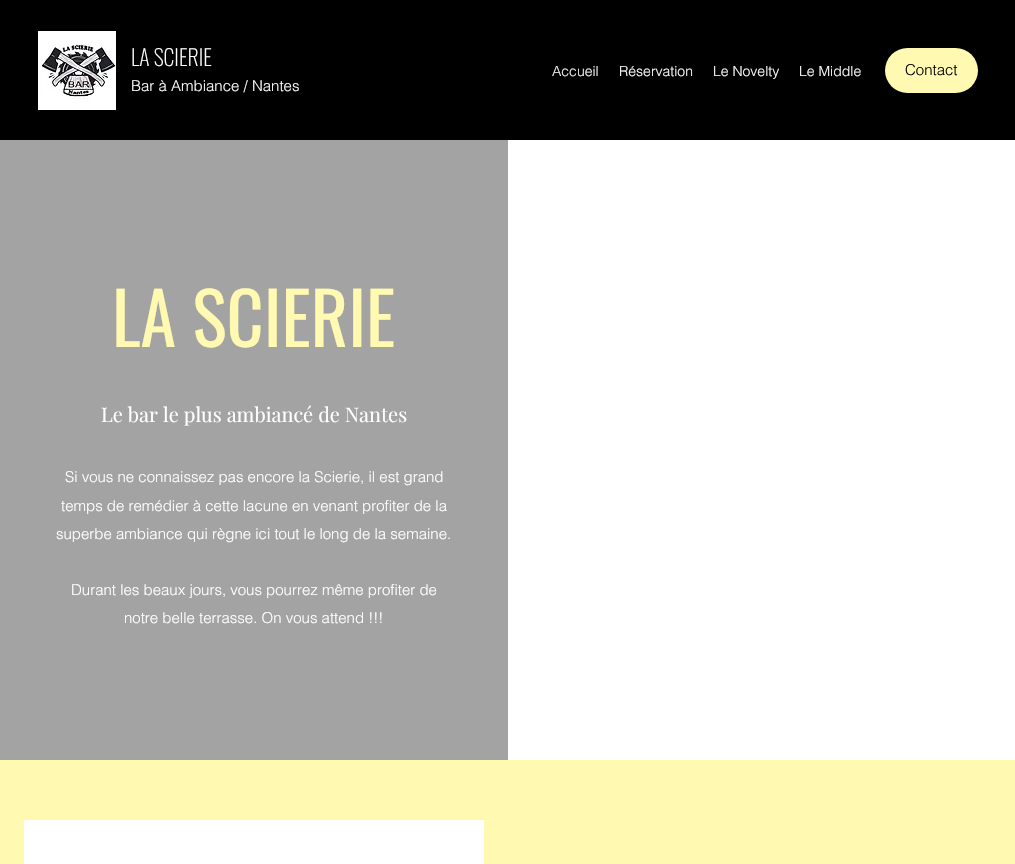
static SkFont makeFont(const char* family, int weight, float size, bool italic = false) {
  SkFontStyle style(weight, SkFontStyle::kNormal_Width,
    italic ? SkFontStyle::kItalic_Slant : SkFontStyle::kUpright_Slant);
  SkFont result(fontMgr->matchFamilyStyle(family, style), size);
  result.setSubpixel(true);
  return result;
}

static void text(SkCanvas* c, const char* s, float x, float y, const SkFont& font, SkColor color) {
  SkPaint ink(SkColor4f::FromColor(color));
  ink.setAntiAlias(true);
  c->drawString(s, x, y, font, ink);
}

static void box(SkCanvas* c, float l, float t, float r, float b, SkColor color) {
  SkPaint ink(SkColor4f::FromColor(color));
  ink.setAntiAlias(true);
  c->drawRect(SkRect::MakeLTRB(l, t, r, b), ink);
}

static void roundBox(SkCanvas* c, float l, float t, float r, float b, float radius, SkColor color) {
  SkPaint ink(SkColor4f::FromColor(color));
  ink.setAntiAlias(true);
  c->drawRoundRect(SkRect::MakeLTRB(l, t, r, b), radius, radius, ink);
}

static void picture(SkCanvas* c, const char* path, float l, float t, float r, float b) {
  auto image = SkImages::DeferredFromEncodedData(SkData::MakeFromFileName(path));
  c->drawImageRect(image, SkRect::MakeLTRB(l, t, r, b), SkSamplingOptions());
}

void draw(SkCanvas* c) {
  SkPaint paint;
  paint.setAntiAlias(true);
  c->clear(0xffffffff);
  box(c, 0, 0, 1015, 140, 0xff000000);
  picture(c, "img_01.png", 38, 31, 116, 110);
  SkFont face1 = makeFont("Oswald", 200, 22);
  text(c, "LA SCIERIE", 131, 66, face1, 0xffffffff);
  SkFont face2 = makeFont("helvetica", 300, 15);
  text(c, "Bar à Ambiance / Nantes", 131, 91, face2, 0xffffffff);
  SkFont face3 = makeFont("helvetica", 300, 14);
  text(c, "Accueil", 552, 76, face3, 0xfff7f7f7);
  text(c, "Réservation", 619, 76, face3, 0xffffffff);
  text(c, "Le Novelty", 713, 76, face3, 0xffffffff);
  text(c, "Le Middle", 799, 76, face3, 0xffffffff);
  roundBox(c, 885, 48, 978, 93, 22.5f, 0xfffff9b1);
  text(c, "Contact", 905, 75, face2, 0xff000000);
  box(c, 0, 140, 508, 760, 0xffa3a3a3);
  SkFont face4 = makeFont("Oswald", 400, 72);
  text(c, "LA SCIERIE", 112, 347, face4, 0xfffff9b1);
  SkFont face5 = makeFont("Playfair Display", 400, 20);
  text(c, "Le bar le plus ambiancé de Nantes", 101, 422, face5, 0xffffffff);
  text(c, "Si vous ne connaissez pas encore la Scierie, il est grand", 65, 482, face2, 0xffffffff);
  text(c, "temps de remédier à cette lacune en venant profiter de la", 61, 511, face2, 0xffffffff);
  text(c, "superbe ambiance qui règne ici tout le long de la semaine.", 56, 539, face2, 0xffffffff);
  text(c, "Durant les beaux jours, vous pourrez même profiter de", 71, 595, face2, 0xffffffff);
  text(c, "notre belle terrasse. On vous attend !!!", 124, 623, face2, 0xffffffff);
  box(c, 0, 760, 1015, 864, 0xfffff9b1);
  box(c, 24, 820, 484, 864, 0xffffffff);
}
